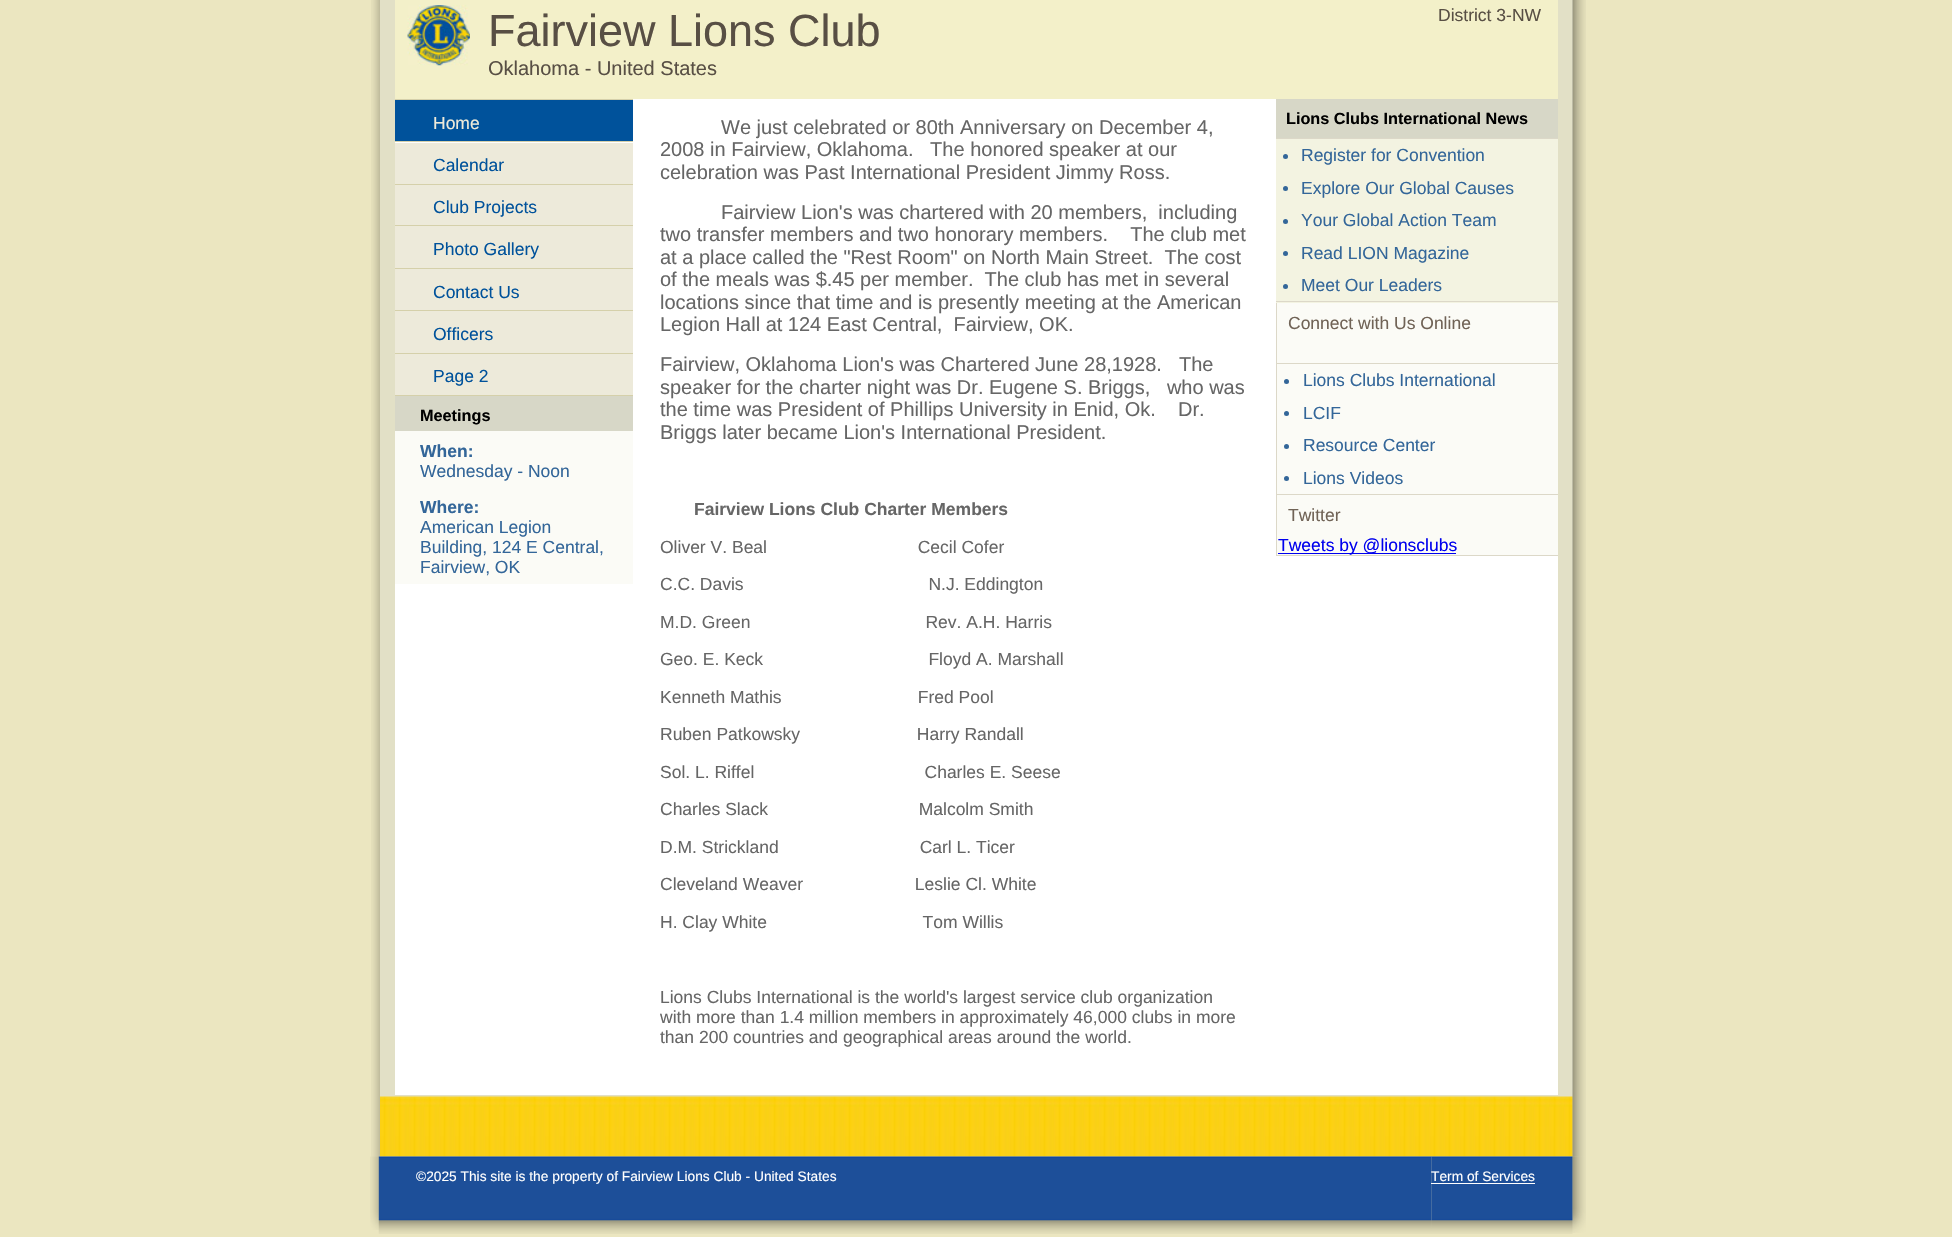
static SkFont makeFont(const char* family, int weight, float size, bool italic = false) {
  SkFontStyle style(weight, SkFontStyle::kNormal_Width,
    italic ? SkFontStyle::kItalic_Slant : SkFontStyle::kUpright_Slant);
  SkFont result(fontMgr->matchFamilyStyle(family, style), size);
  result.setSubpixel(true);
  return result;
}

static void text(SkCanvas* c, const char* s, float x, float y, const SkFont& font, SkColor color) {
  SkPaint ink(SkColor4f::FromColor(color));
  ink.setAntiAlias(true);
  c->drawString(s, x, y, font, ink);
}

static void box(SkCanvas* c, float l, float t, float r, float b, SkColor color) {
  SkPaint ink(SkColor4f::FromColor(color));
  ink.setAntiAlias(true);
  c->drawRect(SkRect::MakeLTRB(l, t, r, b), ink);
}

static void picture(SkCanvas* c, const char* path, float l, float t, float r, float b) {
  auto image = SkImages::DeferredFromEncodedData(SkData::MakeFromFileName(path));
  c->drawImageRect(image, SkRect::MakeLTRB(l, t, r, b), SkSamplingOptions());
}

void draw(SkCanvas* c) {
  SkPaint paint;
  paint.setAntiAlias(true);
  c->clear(0xffebe6c0);
  picture(c, "img_01.png", 371, 0, 380, 1157);
  box(c, 380, 0, 1573, 1156, 0xffe2e0c6);
  picture(c, "img_02.png", 380, 1096, 1573, 1157);
  box(c, 395, 0, 1558, 99, 0xfff3f0c9);
  picture(c, "img_03.png", 407, 5, 470, 66);
  SkFont face1 = makeFont("Liberation Sans", 400, 45);
  text(c, "Fairview Lions Club", 488, 46, face1, 0xff584f44);
  SkFont face2 = makeFont("Liberation Sans", 400, 20);
  text(c, "Oklahoma - United States", 488, 75, face2, 0xff584f44);
  SkFont face3 = makeFont("Liberation Sans", 400, 17.5f);
  text(c, "District 3-NW", 1438, 21, face3, 0xff584f44);
  box(c, 395, 99, 1558, 1095, 0xffffffff);
  box(c, 395, 99, 633, 100, 0xffd5d0aa);
  box(c, 395, 141, 633, 142, 0xffd5d0aa);
  box(c, 395, 100, 633, 141, 0xff00529b);
  text(c, "Home", 433, 129, face3, 0xffedeada);
  box(c, 395, 184, 633, 185, 0xffd5d0aa);
  box(c, 395, 143, 633, 184, 0xffedeada);
  text(c, "Calendar", 433, 171, face3, 0xff00529b);
  box(c, 395, 225, 633, 226, 0xffd5d0aa);
  box(c, 395, 185, 633, 225, 0xffedeada);
  text(c, "Club Projects", 433, 213, face3, 0xff00529b);
  box(c, 395, 268, 633, 269, 0xffd5d0aa);
  box(c, 395, 226, 633, 268, 0xffedeada);
  text(c, "Photo Gallery", 433, 255, face3, 0xff00529b);
  box(c, 395, 310, 633, 311, 0xffd5d0aa);
  box(c, 395, 269, 633, 310, 0xffedeada);
  text(c, "Contact Us", 433, 298, face3, 0xff00529b);
  box(c, 395, 353, 633, 354, 0xffd5d0aa);
  box(c, 395, 311, 633, 353, 0xffedeada);
  text(c, "Officers", 433, 340, face3, 0xff00529b);
  box(c, 395, 395, 633, 396, 0xffd5d0aa);
  box(c, 395, 354, 633, 395, 0xffedeada);
  text(c, "Page 2", 433, 382, face3, 0xff00529b);
  box(c, 395, 431, 633, 584, 0xfffbfbf6);
  box(c, 395, 396, 633, 431, 0xffd7d7c7);
  SkFont face4 = makeFont("Liberation Sans", 700, 16.25f);
  text(c, "Meetings", 420, 421, face4, 0xff000000);
  SkFont face5 = makeFont("Liberation Sans", 700, 17.5f);
  text(c, "When:", 420, 457, face5, 0xff336699);
  text(c, "Wednesday - Noon", 420, 477, face3, 0xff336699);
  text(c, "Where:", 420, 513, face5, 0xff336699);
  text(c, "American Legion", 420, 533, face3, 0xff336699);
  text(c, "Building, 124 E Central,", 420, 553, face3, 0xff336699);
  text(c, "Fairview, OK", 420, 573, face3, 0xff336699);
  text(c, "We just celebrated or 80th Anniversary on December 4,", 721, 134, face2, 0xff666666);
  text(c, "2008 in Fairview, Oklahoma.   The honored speaker at our", 660, 156, face2, 0xff666666);
  text(c, "celebration was Past International President Jimmy Ross.", 660, 179, face2, 0xff666666);
  text(c, "Fairview Lion's was chartered with 20 members,  including", 721, 219, face2, 0xff666666);
  text(c, "two transfer members and two honorary members.    The club met", 660, 241, face2, 0xff666666);
  text(c, "at a place called the \"Rest Room\" on North Main Street.  The cost", 660, 264, face2, 0xff666666);
  text(c, "of the meals was $.45 per member.  The club has met in several", 660, 286, face2, 0xff666666);
  text(c, "locations since that time and is presently meeting at the American", 660, 309, face2, 0xff666666);
  text(c, "Legion Hall at 124 East Central,  Fairview, OK.", 660, 331, face2, 0xff666666);
  text(c, "Fairview, Oklahoma Lion's was Chartered June 28,1928.", 660, 371, face2, 0xff666666);
  text(c, "The", 1179, 371, face2, 0xff666666);
  text(c, "speaker for the charter night was Dr. Eugene S. Briggs,   who was", 660, 394, face2, 0xff666666);
  text(c, "the time was President of Phillips University in Enid, Ok.    Dr.", 660, 416, face2, 0xff666666);
  text(c, "Briggs later became Lion's International President.", 660, 439, face2, 0xff666666);
  text(c, "Fairview Lions Club Charter Members", 694, 515, face5, 0xff666666);
  text(c, "Oliver V. Beal                               Cecil Cofer", 660, 553, face3, 0xff666666);
  text(c, "C.C. Davis                                      N.J. Eddington", 660, 590, face3, 0xff666666);
  text(c, "M.D. Green                                    Rev. A.H. Harris", 660, 628, face3, 0xff666666);
  text(c, "Geo. E. Keck                                  Floyd A. Marshall", 660, 665, face3, 0xff666666);
  text(c, "Kenneth Mathis                            Fred Pool", 660, 703, face3, 0xff666666);
  text(c, "Ruben Patkowsky                        Harry Randall", 660, 740, face3, 0xff666666);
  text(c, "Sol. L. Riffel                                   Charles E. Seese", 660, 778, face3, 0xff666666);
  text(c, "Charles Slack                               Malcolm Smith", 660, 815, face3, 0xff666666);
  text(c, "D.M. Strickland                             Carl L. Ticer", 660, 853, face3, 0xff666666);
  text(c, "Cleveland Weaver                       Leslie Cl. White", 660, 890, face3, 0xff666666);
  text(c, "H. Clay White                                Tom Willis", 660, 928, face3, 0xff666666);
  text(c, "Lions Clubs International is the world's largest service club organization", 660, 1003, face3, 0xff666666);
  text(c, "with more than 1.4 million members in approximately 46,000 clubs in more", 660, 1023, face3, 0xff666666);
  text(c, "than 200 countries and geographical areas around the world.", 660, 1043, face3, 0xff666666);
  box(c, 1276, 139, 1558, 303, 0xfff3f3e1);
  box(c, 1276, 99, 1558, 138, 0xffd7d7c7);
  text(c, "Lions Clubs International News", 1286, 124, face4, 0xff000000);
  box(c, 1276, 138, 1558, 139, 0xffdcd8c8);
  paint.setColor(0xff336699);
  c->drawCircle(1285.5f, 156.5f, 2.5f, paint);
  text(c, "Register for Convention", 1301, 161, face3, 0xff336699);
  c->drawCircle(1285.5f, 188.5f, 2.5f, paint);
  text(c, "Explore Our Global Causes", 1301, 194, face3, 0xff336699);
  c->drawCircle(1285.5f, 221.5f, 2.5f, paint);
  text(c, "Your Global Action Team", 1301, 226, face3, 0xff336699);
  c->drawCircle(1285.5f, 253.5f, 2.5f, paint);
  text(c, "Read LION Magazine", 1301, 259, face3, 0xff336699);
  c->drawCircle(1285.5f, 286.5f, 2.5f, paint);
  text(c, "Meet Our Leaders", 1301, 291, face3, 0xff336699);
  box(c, 1276, 301, 1558, 302, 0xffdcd8c8);
  box(c, 1277, 303, 1558, 363, 0xfffbfbf6);
  box(c, 1276, 303, 1277, 363, 0xffdcd8c8);
  text(c, "Connect with Us Online", 1288, 329, face3, 0xff706356);
  box(c, 1276, 363, 1558, 364, 0xffdcd8c8);
  box(c, 1277, 364, 1558, 494, 0xfffbfbf6);
  box(c, 1276, 364, 1277, 494, 0xffdcd8c8);
  c->drawCircle(1286.5f, 381.5f, 2.5f, paint);
  text(c, "Lions Clubs International", 1303, 386, face3, 0xff336699);
  c->drawCircle(1286.5f, 413.5f, 2.5f, paint);
  text(c, "LCIF", 1303, 419, face3, 0xff336699);
  c->drawCircle(1286.5f, 446.5f, 2.5f, paint);
  text(c, "Resource Center", 1303, 451, face3, 0xff336699);
  c->drawCircle(1286.5f, 478.5f, 2.5f, paint);
  text(c, "Lions Videos", 1303, 484, face3, 0xff336699);
  box(c, 1276, 494, 1558, 495, 0xffdcd8c8);
  box(c, 1277, 495, 1558, 555, 0xfffbfbf6);
  box(c, 1276, 495, 1277, 555, 0xffdcd8c8);
  text(c, "Twitter", 1288, 521, face3, 0xff706356);
  box(c, 1278, 553, 1456, 554, 0xff0000ee);
  text(c, "Tweets by @lionsclubs", 1278, 551, face3, 0xff0000ee);
  box(c, 1276, 555, 1558, 556, 0xffdcd8c8);
  picture(c, "img_04.png", 1572, 0, 1586, 1157);
  picture(c, "img_06.png", 378, 1156, 1432, 1234);
  picture(c, "img_05.png", 370, 1156, 379, 1230);
  SkFont face6 = makeFont("Liberation Sans", 400, 13.75f);
  text(c, "©2025 This site is the property of Fairview Lions Club - United States", 416, 1181, face6, 0xffffffff);
  picture(c, "img_07.png", 1431, 1156, 1573, 1234);
  text(c, "Term of Services", 1431, 1181, face6, 0xffffffff);
  box(c, 1431, 1183, 1535, 1184, 0xffffffff);
  picture(c, "img_08.png", 1572, 1156, 1586, 1233);
}
